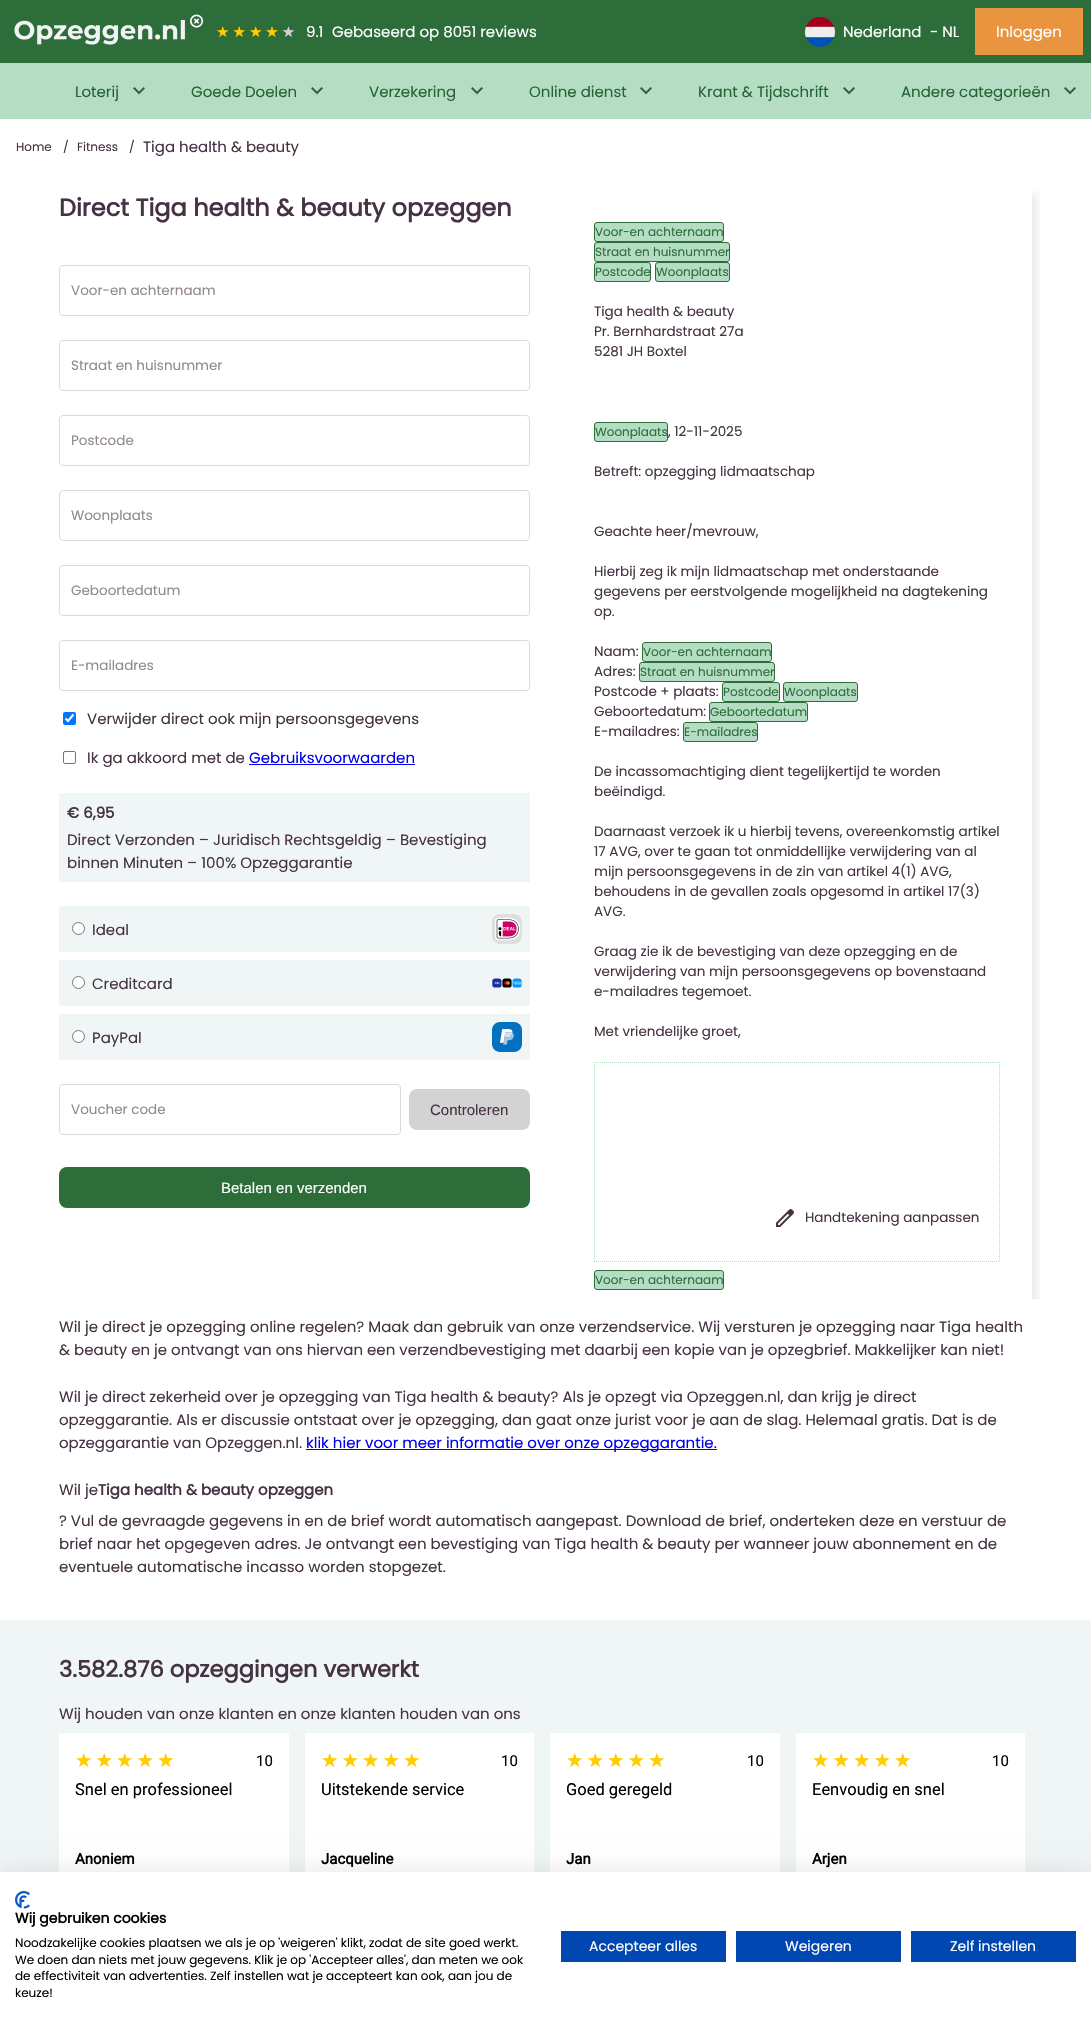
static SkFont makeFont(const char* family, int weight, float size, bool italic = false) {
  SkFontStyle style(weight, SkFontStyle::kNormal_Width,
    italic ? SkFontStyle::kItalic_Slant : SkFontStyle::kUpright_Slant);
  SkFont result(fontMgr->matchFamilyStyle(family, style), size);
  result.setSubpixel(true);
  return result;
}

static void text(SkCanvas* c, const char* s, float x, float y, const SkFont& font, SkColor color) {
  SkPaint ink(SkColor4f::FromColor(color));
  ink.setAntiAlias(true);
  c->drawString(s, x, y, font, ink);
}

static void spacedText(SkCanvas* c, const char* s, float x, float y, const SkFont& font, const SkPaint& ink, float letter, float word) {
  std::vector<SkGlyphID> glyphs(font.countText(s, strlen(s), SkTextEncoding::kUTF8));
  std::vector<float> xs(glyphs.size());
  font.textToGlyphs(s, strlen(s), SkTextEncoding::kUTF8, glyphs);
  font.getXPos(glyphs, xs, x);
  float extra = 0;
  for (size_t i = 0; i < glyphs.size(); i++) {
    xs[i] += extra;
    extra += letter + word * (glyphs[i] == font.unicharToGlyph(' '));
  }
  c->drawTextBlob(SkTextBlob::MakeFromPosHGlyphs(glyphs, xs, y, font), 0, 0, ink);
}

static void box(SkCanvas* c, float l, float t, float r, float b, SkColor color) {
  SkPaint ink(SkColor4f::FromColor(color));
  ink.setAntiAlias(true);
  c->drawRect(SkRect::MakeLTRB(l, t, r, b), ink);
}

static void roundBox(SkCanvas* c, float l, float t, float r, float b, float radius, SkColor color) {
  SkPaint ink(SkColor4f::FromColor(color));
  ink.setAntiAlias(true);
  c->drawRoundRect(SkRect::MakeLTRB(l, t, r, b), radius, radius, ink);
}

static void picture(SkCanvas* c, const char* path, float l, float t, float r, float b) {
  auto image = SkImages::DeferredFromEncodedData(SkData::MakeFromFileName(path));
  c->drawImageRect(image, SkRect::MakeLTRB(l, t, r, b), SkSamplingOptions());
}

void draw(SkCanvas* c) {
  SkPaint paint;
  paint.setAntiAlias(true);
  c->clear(0xffffffff);
  box(c, 0, 0, 1091, 63, 0xff2c6d3a);
  picture(c, "img_01.png", 14, 14, 204, 45);
  SkFont face1 = makeFont("DejaVu Sans", 400, 15);
  {
    const SkColor colors[] = {0xffffcc00, 0xffd2d2d2};
    const float stops[] = {0.8f, 0.8f};
    const SkPoint ends[] = {{216, 32}, {298, 31}};
    paint.setShader(SkGradientShader::MakeLinear(ends, colors, stops, 2, SkTileMode::kClamp));
    paint.setAlpha(255);
  }
  spacedText(c, "★★★★★", 216, 37, face1, paint, 3, 0);
  SkFont face2 = makeFont("Poppins", 400, 15);
  text(c, "9.1", 306, 37, face2, 0xffffffff);
  text(c, "Gebaseerd op 8051 reviews", 332, 37, face2, 0xffffffff);
  picture(c, "img_02.png", 805, 17, 835, 47);
  text(c, "Nederland", 843, 37, face2, 0xffffffff);
  text(c, "- NL", 930, 37, face2, 0xffffffff);
  box(c, 975, 8, 1083, 55, 0xffe9953f);
  text(c, "Inloggen", 996, 37, face2, 0xffffffff);
  box(c, 0, 63, 1091, 119, 0xffb5ddc4);
  text(c, "Loterij", 75, 97, face2, 0xff266334);
  picture(c, "img_03.png", 133, 87, 145, 95);
  text(c, "Goede Doelen", 191, 97, face2, 0xff266334);
  picture(c, "img_03.png", 311, 87, 323, 95);
  text(c, "Verzekering", 369, 97, face2, 0xff266334);
  picture(c, "img_03.png", 471, 87, 483, 95);
  text(c, "Online dienst", 529, 97, face2, 0xff266334);
  picture(c, "img_03.png", 640, 87, 652, 95);
  text(c, "Krant & Tijdschrift", 698, 97, face2, 0xff266334);
  picture(c, "img_03.png", 843, 87, 855, 95);
  text(c, "Andere categorieën", 901, 97, face2, 0xff266334);
  picture(c, "img_03.png", 1064, 87, 1076, 95);
  SkFont face3 = makeFont("Poppins", 400, 12);
  text(c, "Home", 16, 151, face3, 0xff453344);
  text(c, "/", 63, 151, face3, 0xff453344);
  text(c, "Fitness", 77, 151, face3, 0xff453344);
  text(c, "/", 129, 151, face3, 0xff453344);
  text(c, "Tiga health & beauty", 143, 152, face2, 0xff453344);
  SkFont face4 = makeFont("Poppins", 700, 24);
  text(c, "Direct Tiga health & beauty opzeggen", 59, 216, face4, 0xff453344);
  paint.setStyle(SkPaint::kStroke_Style);
  paint.setStrokeWidth(1);
  paint.setShader(nullptr);
  paint.setColor(0xffdfd8df);
  c->drawRoundRect(SkRect::MakeLTRB(59.5f, 265.5f, 529.5f, 315.5f), 3.5f, 3.5f, paint);
  SkFont face5 = makeFont("Poppins", 400, 13.5f);
  text(c, "Voor-en achternaam", 71, 295, face5, 0xff928791);
  c->drawRoundRect(SkRect::MakeLTRB(59.5f, 340.5f, 529.5f, 390.5f), 3.5f, 3.5f, paint);
  text(c, "Straat en huisnummer", 71, 370, face5, 0xff928791);
  c->drawRoundRect(SkRect::MakeLTRB(59.5f, 415.5f, 529.5f, 465.5f), 3.5f, 3.5f, paint);
  text(c, "Postcode", 71, 445, face5, 0xff928791);
  c->drawRoundRect(SkRect::MakeLTRB(59.5f, 490.5f, 529.5f, 540.5f), 3.5f, 3.5f, paint);
  text(c, "Woonplaats", 71, 520, face5, 0xff928791);
  c->drawRoundRect(SkRect::MakeLTRB(59.5f, 565.5f, 529.5f, 615.5f), 3.5f, 3.5f, paint);
  text(c, "Geboortedatum", 71, 595, face5, 0xff928791);
  c->drawRoundRect(SkRect::MakeLTRB(59.5f, 640.5f, 529.5f, 690.5f), 3.5f, 3.5f, paint);
  text(c, "E-mailadres", 71, 670, face5, 0xff928791);
  roundBox(c, 63, 712, 76, 725, 2, 0xff0075ff);
  paint.setStrokeWidth(2.1f);
  paint.setColor(0xffffffff);
  c->drawPath(SkPathBuilder().moveTo(65.5f, 718.5f).lineTo(68, 721).lineTo(73.5f, 714.5f).detach(), paint);
  text(c, "Verwijder direct ook mijn persoonsgegevens", 87, 724, face2, 0xff453344);
  paint.setStrokeWidth(1);
  paint.setColor(0xff767676);
  c->drawRoundRect(SkRect::MakeLTRB(63.5f, 751.5f, 75.5f, 763.5f), 1.5f, 1.5f, paint);
  text(c, "Ik ga akkoord met de", 87, 763, face2, 0xff453344);
  text(c, "Gebruiksvoorwaarden", 249, 763, face2, 0xff0000ee);
  box(c, 249, 764, 415, 765, 0xff0000ee);
  box(c, 59, 793, 530, 882, 0xfff0f5f5);
  SkFont face6 = makeFont("Poppins", 700, 15);
  text(c, "€ 6,95", 67, 818, face6, 0xff453344);
  text(c, "Direct Verzonden – Juridisch Rechtsgeldig – Bevestiging", 67, 845, face2, 0xff453344);
  text(c, "binnen Minuten – 100% Opzeggarantie", 67, 868, face2, 0xff453344);
  box(c, 59, 906, 530, 952, 0xfff0f5f5);
  paint.setStyle(SkPaint::kFill_Style);
  paint.setColor(0xffffffff);
  c->drawCircle(78.5f, 928.5f, 6, paint);
  paint.setStyle(SkPaint::kStroke_Style);
  paint.setColor(0xff767676);
  c->drawCircle(78.5f, 928.5f, 6, paint);
  text(c, "Ideal", 92, 935, face2, 0xff453344);
  picture(c, "img_04.png", 492, 914, 522, 944);
  box(c, 59, 960, 530, 1006, 0xfff0f5f5);
  paint.setStyle(SkPaint::kFill_Style);
  paint.setColor(0xffffffff);
  c->drawCircle(78.5f, 982.5f, 6, paint);
  paint.setStyle(SkPaint::kStroke_Style);
  paint.setColor(0xff767676);
  c->drawCircle(78.5f, 982.5f, 6, paint);
  text(c, "Creditcard", 92, 989, face2, 0xff453344);
  picture(c, "img_05.png", 492, 978, 522, 988);
  box(c, 59, 1014, 530, 1060, 0xfff0f5f5);
  paint.setStyle(SkPaint::kFill_Style);
  paint.setColor(0xffffffff);
  c->drawCircle(78.5f, 1036.5f, 6, paint);
  paint.setStyle(SkPaint::kStroke_Style);
  paint.setColor(0xff767676);
  c->drawCircle(78.5f, 1036.5f, 6, paint);
  text(c, "PayPal", 92, 1043, face2, 0xff453344);
  picture(c, "img_06.png", 492, 1022, 522, 1052);
  paint.setColor(0xffdfd8df);
  c->drawRoundRect(SkRect::MakeLTRB(59.5f, 1084.5f, 400.5f, 1134.5f), 3.5f, 3.5f, paint);
  text(c, "Voucher code", 71, 1114, face5, 0xff928791);
  roundBox(c, 409, 1089, 530, 1130, 8, 0xffd3d3d3);
  SkFont face7 = makeFont("Liberation Sans", 400, 15);
  text(c, "Controleren", 430, 1115, face7, 0xff453344);
  roundBox(c, 59, 1167, 530, 1208, 8, 0xff2c6d3a);
  text(c, "Betalen en verzenden", 221, 1193, face7, 0xffffffff);
  c->save();
  c->clipRect(SkRect::MakeLTRB(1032, 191, 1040, 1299));
  paint.setStyle(SkPaint::kFill_Style);
  paint.setColor(0x1a000000);
  paint.setMaskFilter(SkMaskFilter::MakeBlur(kNormal_SkBlurStyle, 5));
  c->drawRect(SkRect::MakeLTRB(566, 194, 1036, 1326), paint);
  paint.setMaskFilter(nullptr);
  c->restore();
  paint.setColor(0xffb5ddc4);
  c->drawRoundRect(SkRect::MakeLTRB(594.5f, 222.5f, 723.5f, 241.5f), 2.5f, 2.5f, paint);
  paint.setStyle(SkPaint::kStroke_Style);
  paint.setColor(0xff2c6d3a);
  c->drawRoundRect(SkRect::MakeLTRB(594.5f, 222.5f, 723.5f, 241.5f), 2.5f, 2.5f, paint);
  text(c, "Voor-en achternaam", 595, 236, face3, 0xff2c6d3a);
  paint.setStyle(SkPaint::kFill_Style);
  paint.setColor(0xffb5ddc4);
  c->drawRoundRect(SkRect::MakeLTRB(594.5f, 242.5f, 729.5f, 261.5f), 2.5f, 2.5f, paint);
  paint.setStyle(SkPaint::kStroke_Style);
  paint.setColor(0xff2c6d3a);
  c->drawRoundRect(SkRect::MakeLTRB(594.5f, 242.5f, 729.5f, 261.5f), 2.5f, 2.5f, paint);
  text(c, "Straat en huisnummer", 595, 256, face3, 0xff2c6d3a);
  paint.setStyle(SkPaint::kFill_Style);
  paint.setColor(0xffb5ddc4);
  c->drawRoundRect(SkRect::MakeLTRB(594.5f, 262.5f, 650.5f, 281.5f), 2.5f, 2.5f, paint);
  paint.setStyle(SkPaint::kStroke_Style);
  paint.setColor(0xff2c6d3a);
  c->drawRoundRect(SkRect::MakeLTRB(594.5f, 262.5f, 650.5f, 281.5f), 2.5f, 2.5f, paint);
  text(c, "Postcode", 595, 276, face3, 0xff2c6d3a);
  paint.setStyle(SkPaint::kFill_Style);
  paint.setColor(0xffb5ddc4);
  c->drawRoundRect(SkRect::MakeLTRB(655.5f, 262.5f, 729.5f, 281.5f), 2.5f, 2.5f, paint);
  paint.setStyle(SkPaint::kStroke_Style);
  paint.setColor(0xff2c6d3a);
  c->drawRoundRect(SkRect::MakeLTRB(655.5f, 262.5f, 729.5f, 281.5f), 2.5f, 2.5f, paint);
  text(c, "Woonplaats", 656, 276, face3, 0xff2c6d3a);
  text(c, "Tiga health & beauty", 594, 316, face5, 0xff453344);
  text(c, "Pr. Bernhardstraat 27a", 594, 336, face5, 0xff453344);
  text(c, "5281 JH Boxtel", 594, 356, face5, 0xff453344);
  paint.setStyle(SkPaint::kFill_Style);
  paint.setColor(0xffb5ddc4);
  c->drawRoundRect(SkRect::MakeLTRB(594.5f, 422.5f, 667.5f, 441.5f), 2.5f, 2.5f, paint);
  paint.setStyle(SkPaint::kStroke_Style);
  paint.setColor(0xff2c6d3a);
  c->drawRoundRect(SkRect::MakeLTRB(594.5f, 422.5f, 667.5f, 441.5f), 2.5f, 2.5f, paint);
  text(c, "Woonplaats", 595, 436, face3, 0xff2c6d3a);
  text(c, ", 12-11-2025", 668, 436, face5, 0xff453344);
  text(c, "Betreft: opzegging lidmaatschap", 594, 476, face5, 0xff453344);
  text(c, "Geachte heer/mevrouw,", 594, 536, face5, 0xff453344);
  text(c, "Hierbij zeg ik mijn lidmaatschap met onderstaande", 594, 576, face5, 0xff453344);
  text(c, "gegevens per eerstvolgende mogelijkheid na dagtekening", 594, 596, face5, 0xff453344);
  text(c, "op.", 594, 616, face5, 0xff453344);
  text(c, "Naam:", 594, 656, face5, 0xff453344);
  paint.setStyle(SkPaint::kFill_Style);
  paint.setColor(0xffb5ddc4);
  c->drawRoundRect(SkRect::MakeLTRB(642.5f, 642.5f, 771.5f, 661.5f), 2.5f, 2.5f, paint);
  paint.setStyle(SkPaint::kStroke_Style);
  paint.setColor(0xff2c6d3a);
  c->drawRoundRect(SkRect::MakeLTRB(642.5f, 642.5f, 771.5f, 661.5f), 2.5f, 2.5f, paint);
  text(c, "Voor-en achternaam", 643, 656, face3, 0xff2c6d3a);
  text(c, "Adres:", 594, 676, face5, 0xff453344);
  paint.setStyle(SkPaint::kFill_Style);
  paint.setColor(0xffb5ddc4);
  c->drawRoundRect(SkRect::MakeLTRB(639.5f, 662.5f, 774.5f, 681.5f), 2.5f, 2.5f, paint);
  paint.setStyle(SkPaint::kStroke_Style);
  paint.setColor(0xff2c6d3a);
  c->drawRoundRect(SkRect::MakeLTRB(639.5f, 662.5f, 774.5f, 681.5f), 2.5f, 2.5f, paint);
  text(c, "Straat en huisnummer", 640, 676, face3, 0xff2c6d3a);
  text(c, "Postcode + plaats:", 594, 696, face5, 0xff453344);
  paint.setStyle(SkPaint::kFill_Style);
  paint.setColor(0xffb5ddc4);
  c->drawRoundRect(SkRect::MakeLTRB(722.5f, 682.5f, 779.5f, 701.5f), 2.5f, 2.5f, paint);
  paint.setStyle(SkPaint::kStroke_Style);
  paint.setColor(0xff2c6d3a);
  c->drawRoundRect(SkRect::MakeLTRB(722.5f, 682.5f, 779.5f, 701.5f), 2.5f, 2.5f, paint);
  text(c, "Postcode", 723, 696, face3, 0xff2c6d3a);
  paint.setStyle(SkPaint::kFill_Style);
  paint.setColor(0xffb5ddc4);
  c->drawRoundRect(SkRect::MakeLTRB(783.5f, 682.5f, 857.5f, 701.5f), 2.5f, 2.5f, paint);
  paint.setStyle(SkPaint::kStroke_Style);
  paint.setColor(0xff2c6d3a);
  c->drawRoundRect(SkRect::MakeLTRB(783.5f, 682.5f, 857.5f, 701.5f), 2.5f, 2.5f, paint);
  text(c, "Woonplaats", 784, 696, face3, 0xff2c6d3a);
  text(c, "Geboortedatum:", 594, 716, face5, 0xff453344);
  paint.setStyle(SkPaint::kFill_Style);
  paint.setColor(0xffb5ddc4);
  c->drawRoundRect(SkRect::MakeLTRB(709.5f, 702.5f, 807.5f, 721.5f), 2.5f, 2.5f, paint);
  paint.setStyle(SkPaint::kStroke_Style);
  paint.setColor(0xff2c6d3a);
  c->drawRoundRect(SkRect::MakeLTRB(709.5f, 702.5f, 807.5f, 721.5f), 2.5f, 2.5f, paint);
  text(c, "Geboortedatum", 710, 716, face3, 0xff2c6d3a);
  text(c, "E-mailadres:", 594, 736, face5, 0xff453344);
  paint.setStyle(SkPaint::kFill_Style);
  paint.setColor(0xffb5ddc4);
  c->drawRoundRect(SkRect::MakeLTRB(683.5f, 722.5f, 757.5f, 741.5f), 2.5f, 2.5f, paint);
  paint.setStyle(SkPaint::kStroke_Style);
  paint.setColor(0xff2c6d3a);
  c->drawRoundRect(SkRect::MakeLTRB(683.5f, 722.5f, 757.5f, 741.5f), 2.5f, 2.5f, paint);
  text(c, "E-mailadres", 684, 736, face3, 0xff2c6d3a);
  text(c, "De incassomachtiging dient tegelijkertijd te worden", 594, 776, face5, 0xff453344);
  text(c, "beëindigd.", 594, 796, face5, 0xff453344);
  text(c, "Daarnaast verzoek ik u hierbij tevens, overeenkomstig artikel", 594, 836, face5, 0xff453344);
  text(c, "17 AVG, over te gaan tot onmiddellijke verwijdering van al", 594, 856, face5, 0xff453344);
  text(c, "mijn persoonsgegevens in de zin van artikel 4(1) AVG,", 594, 876, face5, 0xff453344);
  text(c, "behoudens in de gevallen zoals opgesomd in artikel 17(3)", 594, 896, face5, 0xff453344);
  text(c, "AVG.", 594, 916, face5, 0xff453344);
  text(c, "Graag zie ik de bevestiging van deze opzegging en de", 594, 956, face5, 0xff453344);
  text(c, "verwijdering van mijn persoonsgegevens op bovenstaand", 594, 976, face5, 0xff453344);
  text(c, "e-mailadres tegemoet.", 594, 996, face5, 0xff453344);
  text(c, "Met vriendelijke groet,", 594, 1036, face5, 0xff453344);
  paint.setColor(0xffb5ddc4);
  paint.setPathEffect(SkDashPathEffect::Make({{1, 1}}, 0));
  c->drawPath(SkPathBuilder().moveTo(594, 1062.5f).lineTo(1000, 1062.5f).detach(), paint);
  paint.setPathEffect(nullptr);
  paint.setPathEffect(SkDashPathEffect::Make({{1, 1}}, 0));
  c->drawPath(SkPathBuilder().moveTo(594.5f, 1062).lineTo(594.5f, 1262).detach(), paint);
  paint.setPathEffect(nullptr);
  paint.setPathEffect(SkDashPathEffect::Make({{1, 1}}, 0));
  c->drawPath(SkPathBuilder().moveTo(999.5f, 1062).lineTo(999.5f, 1262).detach(), paint);
  paint.setPathEffect(nullptr);
  paint.setPathEffect(SkDashPathEffect::Make({{1, 1}}, 0));
  c->drawPath(SkPathBuilder().moveTo(594, 1261.5f).lineTo(1000, 1261.5f).detach(), paint);
  paint.setPathEffect(nullptr);
  picture(c, "img_07.png", 776, 1209, 794, 1227);
  text(c, "Handtekening aanpassen", 805, 1222, face5, 0xff453344);
  paint.setStyle(SkPaint::kFill_Style);
  c->drawRoundRect(SkRect::MakeLTRB(594.5f, 1270.5f, 723.5f, 1289.5f), 2.5f, 2.5f, paint);
  paint.setStyle(SkPaint::kStroke_Style);
  paint.setColor(0xff2c6d3a);
  c->drawRoundRect(SkRect::MakeLTRB(594.5f, 1270.5f, 723.5f, 1289.5f), 2.5f, 2.5f, paint);
  text(c, "Voor-en achternaam", 595, 1284, face3, 0xff2c6d3a);
  box(c, 560, 1299, 1042, 1332, 0xffffffff);
  text(c, "Wil je direct je opzegging online regelen? Maak dan gebruik van onze verzendservice. Wij versturen je opzegging naar Tiga health", 59, 1332, face2, 0xff453344);
  text(c, "& beauty en je ontvangt van ons hiervan een verzendbevestiging met daarbij een kopie van je opzegbrief. Makkelijker kan niet!", 59, 1355, face2, 0xff453344);
  text(c, "Wil je direct zekerheid over je opzegging van Tiga health & beauty? Als je opzegt via Opzeggen.nl, dan krijg je direct", 59, 1402, face2, 0xff453344);
  text(c, "opzeggarantie. Als er discussie ontstaat over je opzegging, dan gaat onze jurist voor je aan de slag. Helemaal gratis. Dat is de", 59, 1425, face2, 0xff453344);
  text(c, "opzeggarantie van Opzeggen.nl.", 59, 1448, face2, 0xff453344);
  box(c, 306, 1449, 717, 1450, 0xff0000ee);
  text(c, "klik hier voor meer informatie over onze opzeggarantie.", 306, 1448, face2, 0xff0000ee);
  text(c, "Wil je", 59, 1495, face2, 0xff453344);
  text(c, "Tiga health & beauty opzeggen", 98, 1495, face6, 0xff453344);
  text(c, "? Vul de gevraagde gegevens in en de brief wordt automatisch aangepast. Download de brief, onderteken deze en verstuur de", 59, 1526, face2, 0xff453344);
  text(c, "brief naar het opgegeven adres. Je ontvangt een bevestiging van Tiga health & beauty per wanneer jouw abonnement en de", 59, 1549, face2, 0xff453344);
  text(c, "eventuele automatische incasso worden stopgezet.", 59, 1572, face2, 0xff453344);
  box(c, 0, 1620, 1091, 1872, 0xfff0f5f5);
  SkFont face8 = makeFont("Poppins", 700, 22.5f);
  text(c, "3.582.876 opzeggingen verwerkt", 59, 1677, face8, 0xff453344);
  text(c, "Wij houden van onze klanten en onze klanten houden van ons", 59, 1719, face2, 0xff453344);
  box(c, 59, 1733, 289, 1872, 0xffffffff);
  SkFont face9 = makeFont("DejaVu Sans", 400, 19.5f);
  paint.setStyle(SkPaint::kFill_Style);
  {
    const SkColor colors[] = {0xffffcc00, 0xffd2d2d2};
    const float stops[] = {1, 1};
    const SkPoint ends[] = {{75, 1761}, {178, 1761}};
    paint.setShader(SkGradientShader::MakeLinear(ends, colors, stops, 2, SkTileMode::kClamp));
    paint.setAlpha(255);
  }
  spacedText(c, "★★★★★", 75, 1767, face9, paint, 3, 0);
  SkFont face10 = makeFont("Roboto", 400, 15);
  text(c, "10", 256, 1766, face10, 0xff010101);
  SkFont face11 = makeFont("Roboto", 400, 16.5f);
  text(c, "Snel en professioneel", 75, 1795, face11, 0xff010101);
  SkFont face12 = makeFont("Roboto", 700, 15);
  text(c, "Anoniem", 75, 1864, face12, 0xff010101);
  box(c, 305, 1733, 534, 1872, 0xffffffff);
  {
    const SkColor colors[] = {0xffffcc00, 0xffd2d2d2};
    const float stops[] = {1, 1};
    const SkPoint ends[] = {{321, 1761}, {423, 1761}};
    paint.setShader(SkGradientShader::MakeLinear(ends, colors, stops, 2, SkTileMode::kClamp));
    paint.setAlpha(255);
  }
  spacedText(c, "★★★★★", 321, 1767, face9, paint, 3, 0);
  text(c, "10", 501, 1766, face10, 0xff010101);
  text(c, "Uitstekende service", 321, 1795, face11, 0xff010101);
  text(c, "Jacqueline", 321, 1864, face12, 0xff010101);
  box(c, 550, 1733, 780, 1872, 0xffffffff);
  {
    const SkColor colors[] = {0xffffcc00, 0xffd2d2d2};
    const float stops[] = {1, 1};
    const SkPoint ends[] = {{566, 1761}, {669, 1761}};
    paint.setShader(SkGradientShader::MakeLinear(ends, colors, stops, 2, SkTileMode::kClamp));
    paint.setAlpha(255);
  }
  spacedText(c, "★★★★★", 566, 1767, face9, paint, 3, 0);
  text(c, "10", 747, 1766, face10, 0xff010101);
  text(c, "Goed geregeld", 566, 1795, face11, 0xff010101);
  text(c, "Jan", 566, 1864, face12, 0xff010101);
  box(c, 796, 1733, 1025, 1872, 0xffffffff);
  {
    const SkColor colors[] = {0xffffcc00, 0xffd2d2d2};
    const float stops[] = {1, 1};
    const SkPoint ends[] = {{812, 1761}, {914, 1761}};
    paint.setShader(SkGradientShader::MakeLinear(ends, colors, stops, 2, SkTileMode::kClamp));
    paint.setAlpha(255);
  }
  spacedText(c, "★★★★★", 812, 1767, face9, paint, 3, 0);
  text(c, "10", 992, 1766, face10, 0xff010101);
  text(c, "Eenvoudig en snel", 812, 1795, face11, 0xff010101);
  text(c, "Arjen", 812, 1864, face12, 0xff010101);
  paint.setShader(nullptr);
  paint.setColor(0x1a000000);
  paint.setMaskFilter(SkMaskFilter::MakeBlur(kNormal_SkBlurStyle, 12));
  c->drawRect(SkRect::MakeLTRB(0, 1872, 1091, 2029), paint);
  paint.setMaskFilter(nullptr);
  box(c, 0, 1872, 1091, 2029, 0xffffffff);
  picture(c, "img_08.png", 15, 1891, 30, 1909);
  SkFont face13 = makeFont("Poppins", 700, 14);
  text(c, "Wij gebruiken cookies", 15, 1923, face13, 0xff010101);
  text(c, "Noodzakelijke cookies plaatsen we als je op 'weigeren' klikt, zodat de site goed werkt.", 15, 1947, face3, 0xff010101);
  text(c, "We doen dan niets met jouw gegevens. Klik je op 'Accepteer alles', dan meten we ook", 15, 1964, face3, 0xff010101);
  text(c, "de effectiviteit van advertenties. Zelf instellen wat je accepteert kan ook, aan jou de", 15, 1980, face3, 0xff010101);
  text(c, "keuze!", 15, 1997, face3, 0xff010101);
  box(c, 561, 1931, 726, 1962, 0xff0047b2);
  SkFont face14 = makeFont("Poppins", 400, 14);
  text(c, "Accepteer alles", 589, 1951, face14, 0xffffffff);
  box(c, 736, 1931, 901, 1962, 0xff0047b2);
  text(c, "Weigeren", 785, 1951, face14, 0xffffffff);
  box(c, 911, 1931, 1076, 1962, 0xff0047b2);
  text(c, "Zelf instellen", 950, 1951, face14, 0xffffffff);
}
